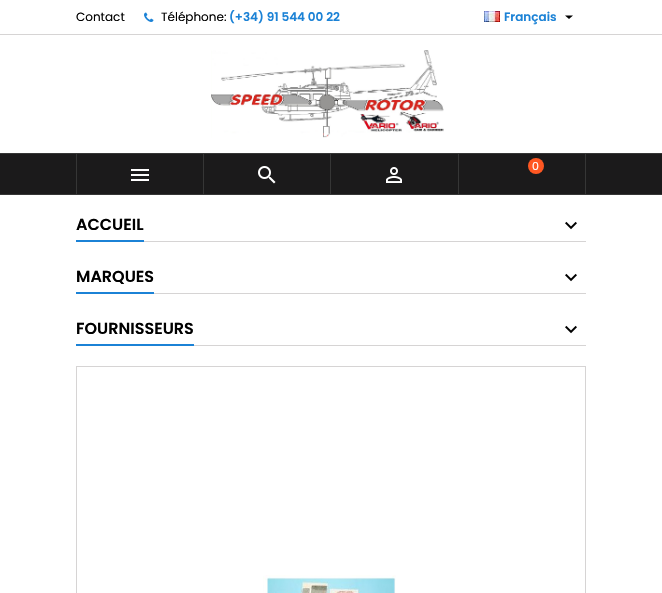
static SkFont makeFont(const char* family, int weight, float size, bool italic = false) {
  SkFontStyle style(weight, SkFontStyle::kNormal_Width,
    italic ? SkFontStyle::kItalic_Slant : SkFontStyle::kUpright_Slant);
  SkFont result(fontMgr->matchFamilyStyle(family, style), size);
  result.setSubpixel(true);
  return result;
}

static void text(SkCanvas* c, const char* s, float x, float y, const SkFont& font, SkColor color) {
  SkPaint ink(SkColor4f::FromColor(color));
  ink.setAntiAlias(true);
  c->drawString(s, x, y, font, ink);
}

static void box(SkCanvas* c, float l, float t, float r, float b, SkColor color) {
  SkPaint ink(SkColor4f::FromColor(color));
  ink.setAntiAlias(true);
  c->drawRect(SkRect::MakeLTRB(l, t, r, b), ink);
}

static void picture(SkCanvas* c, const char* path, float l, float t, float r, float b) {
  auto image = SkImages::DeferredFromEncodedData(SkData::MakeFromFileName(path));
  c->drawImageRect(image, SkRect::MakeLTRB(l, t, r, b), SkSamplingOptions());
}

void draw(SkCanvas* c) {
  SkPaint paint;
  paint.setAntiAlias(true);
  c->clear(0xffffffff);
  box(c, 0, 34, 662, 35, 0xffd6d4d4);
  SkFont face1 = makeFont("Poppins", 400, 12);
  text(c, "Contact", 76, 21, face1, 0xff000000);
  picture(c, "img_01.png", 144, 12, 154, 22);
  text(c, "Téléphone:", 161, 21, face1, 0xff000000);
  SkFont face2 = makeFont("Poppins", 600, 12);
  text(c, "(+34) 91 544 00 22", 229, 21, face2, 0xff1b82d6);
  picture(c, "img_02.png", 484, 11, 500, 22);
  text(c, "Français", 504, 21, face2, 0xff1b82d6);
  paint.setColor(0xff000000);
  c->drawPath(SkPathBuilder().moveTo(565, 15.5f).lineTo(573, 15.5f).lineTo(569, 19).close().detach(), paint);
  picture(c, "img_03.png", 211, 50, 444, 138);
  box(c, 0, 154, 662, 194, 0xff1b1a1b);
  box(c, 0, 153, 662, 154, 0xff363636);
  box(c, 0, 194, 662, 195, 0xff363636);
  box(c, 203, 154, 204, 194, 0xff363636);
  box(c, 76, 154, 77, 194, 0xff363636);
  picture(c, "img_04.png", 131, 169, 149, 181);
  box(c, 330, 154, 331, 194, 0xff363636);
  picture(c, "img_05.png", 258, 166, 276, 184);
  box(c, 458, 154, 459, 194, 0xff363636);
  picture(c, "img_06.png", 386, 167, 402, 183);
  box(c, 585, 154, 586, 194, 0xff363636);
  paint.setColor(0xffff5722);
  c->drawCircle(536, 166, 8, paint);
  SkFont face3 = makeFont("Poppins", 400, 11);
  text(c, "0", 532, 170, face3, 0xffffffff);
  box(c, 144, 241, 586, 242, 0xffd6d4d4);
  box(c, 76, 240, 144, 242, 0xff1b82d6);
  SkFont face4 = makeFont("Poppins", 600, 16);
  text(c, "ACCUEIL", 76, 230, face4, 0xff000000);
  picture(c, "img_07.png", 565, 221, 577, 230);
  box(c, 154, 293, 586, 294, 0xffd6d4d4);
  box(c, 76, 292, 154, 294, 0xff1b82d6);
  text(c, "MARQUES", 76, 282, face4, 0xff000000);
  picture(c, "img_07.png", 565, 273, 577, 282);
  box(c, 194, 345, 586, 346, 0xffd6d4d4);
  box(c, 76, 344, 194, 346, 0xff1b82d6);
  text(c, "FOURNISSEURS", 76, 334, face4, 0xff000000);
  picture(c, "img_07.png", 565, 325, 577, 334);
  paint.setStyle(SkPaint::kStroke_Style);
  paint.setStrokeWidth(1);
  paint.setColor(0xffd6d4d4);
  c->drawRect(SkRect::MakeLTRB(76.5f, 366.5f, 585.5f, 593.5f), paint);
  picture(c, "img_08.png", 263, 575, 396, 593);
}
